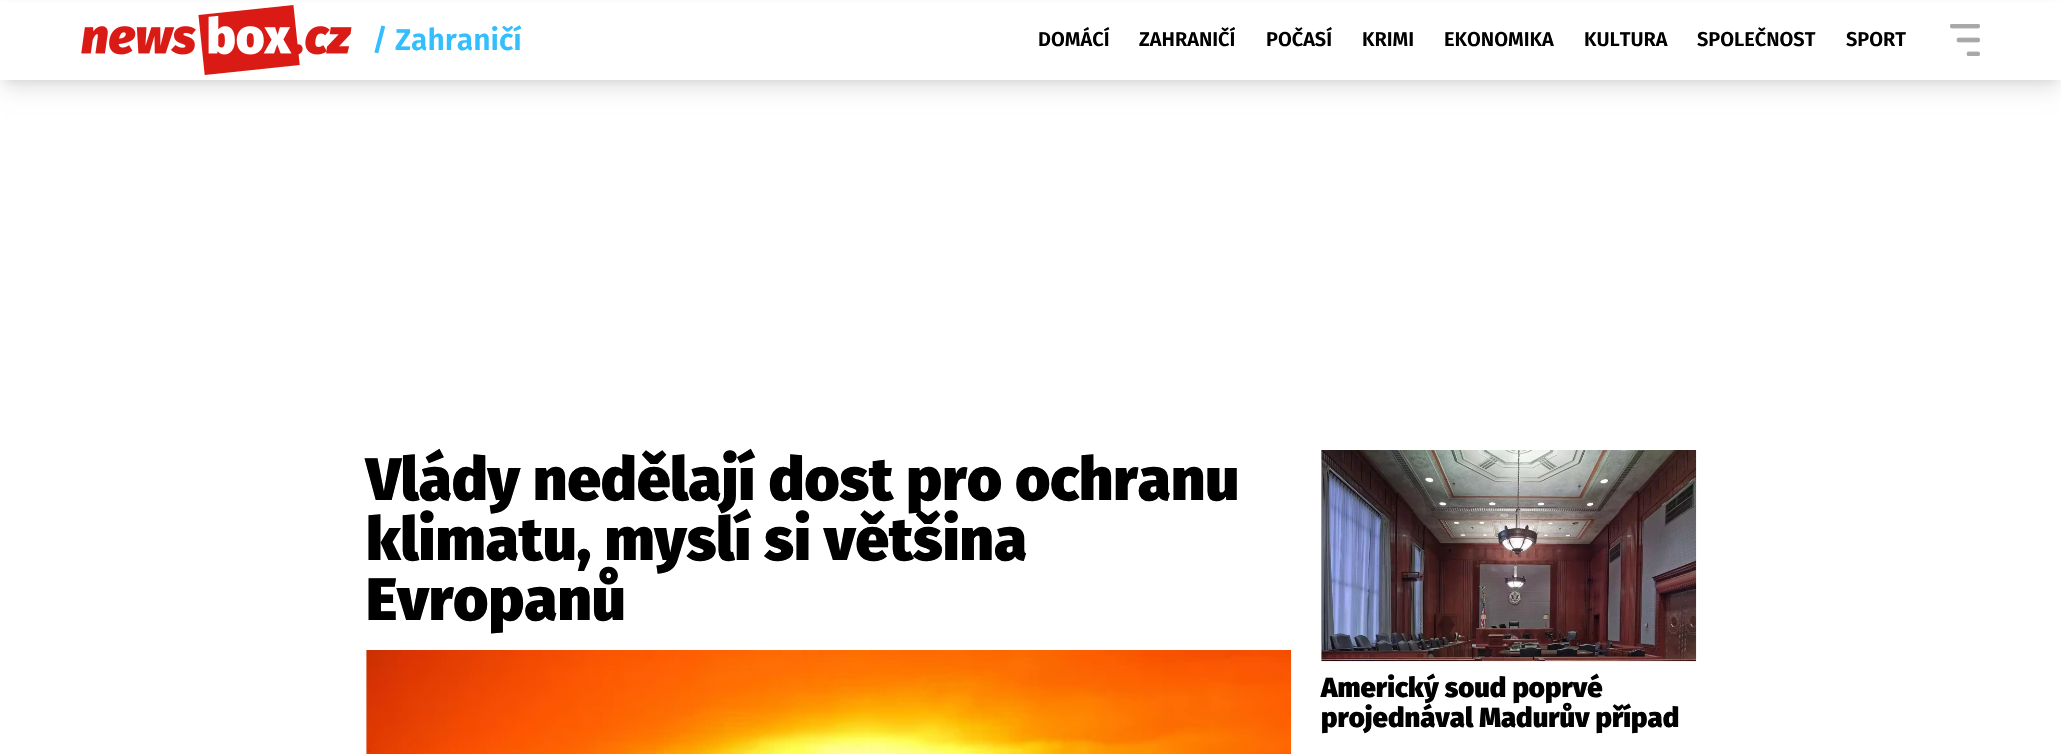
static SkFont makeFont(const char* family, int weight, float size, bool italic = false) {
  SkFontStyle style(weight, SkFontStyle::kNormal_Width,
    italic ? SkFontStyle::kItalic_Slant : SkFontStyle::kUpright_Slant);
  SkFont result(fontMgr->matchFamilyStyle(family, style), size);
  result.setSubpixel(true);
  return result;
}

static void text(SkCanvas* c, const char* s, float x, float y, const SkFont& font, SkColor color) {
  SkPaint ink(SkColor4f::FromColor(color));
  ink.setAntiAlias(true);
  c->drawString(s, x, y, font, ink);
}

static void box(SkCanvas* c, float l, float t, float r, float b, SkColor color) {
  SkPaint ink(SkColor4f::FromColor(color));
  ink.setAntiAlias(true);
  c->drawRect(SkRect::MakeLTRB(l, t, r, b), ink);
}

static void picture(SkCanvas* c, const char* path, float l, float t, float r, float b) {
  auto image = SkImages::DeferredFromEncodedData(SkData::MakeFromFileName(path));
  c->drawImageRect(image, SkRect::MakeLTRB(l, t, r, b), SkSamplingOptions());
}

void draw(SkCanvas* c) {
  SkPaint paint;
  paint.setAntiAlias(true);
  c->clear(0xffffffff);
  paint.setColor(0x1a000000);
  paint.setMaskFilter(SkMaskFilter::MakeBlur(kNormal_SkBlurStyle, 4));
  c->drawRect(SkRect::MakeLTRB(5, 10, 2056, 80), paint);
  paint.setMaskFilter(nullptr);
  paint.setMaskFilter(SkMaskFilter::MakeBlur(kNormal_SkBlurStyle, 9.5f));
  c->drawRect(SkRect::MakeLTRB(4, 16, 2058, 89), paint);
  paint.setMaskFilter(nullptr);
  box(c, 0, 2, 2061, 80, 0xffffffff);
  picture(c, "img_01.png", 81, 5, 352, 75);
  SkFont face1 = makeFont("Fira Sans", 600, 30);
  text(c, "/ Zahraničí", 372, 50, face1, 0xff33beff);
  SkFont face2 = makeFont("Fira Sans", 600, 20);
  text(c, "DOMÁCÍ", 1038, 46, face2, 0xff000000);
  text(c, "ZAHRANIČÍ", 1139, 46, face2, 0xff000000);
  text(c, "POČASÍ", 1266, 46, face2, 0xff000000);
  text(c, "KRIMI", 1362, 46, face2, 0xff000000);
  text(c, "EKONOMIKA", 1444, 46, face2, 0xff000000);
  text(c, "KULTURA", 1584, 46, face2, 0xff000000);
  text(c, "SPOLEČNOST", 1697, 46, face2, 0xff000000);
  text(c, "SPORT", 1846, 46, face2, 0xff000000);
  picture(c, "img_02.png", 1950, 24, 1980, 56);
  SkFont face3 = makeFont("Fira Sans", 900, 60);
  text(c, "Vlády nedělají dost pro ochranu", 366, 500, face3, 0xff000000);
  text(c, "klimatu, myslí si většina", 366, 560, face3, 0xff000000);
  text(c, "Evropanů", 366, 620, face3, 0xff000000);
  box(c, 366, 650, 367, 754, 0xfff0f0f0);
  picture(c, "img_03.png", 366, 650, 1292, 754);
  picture(c, "img_04.png", 1321, 450, 1322, 661);
  picture(c, "img_05.png", 1321, 450, 1697, 662);
  SkFont face4 = makeFont("Fira Sans", 900, 27.5f);
  text(c, "Americký soud poprvé", 1321, 697, face4, 0xff000000);
  text(c, "projednával Madurův případ", 1321, 727, face4, 0xff000000);
}
